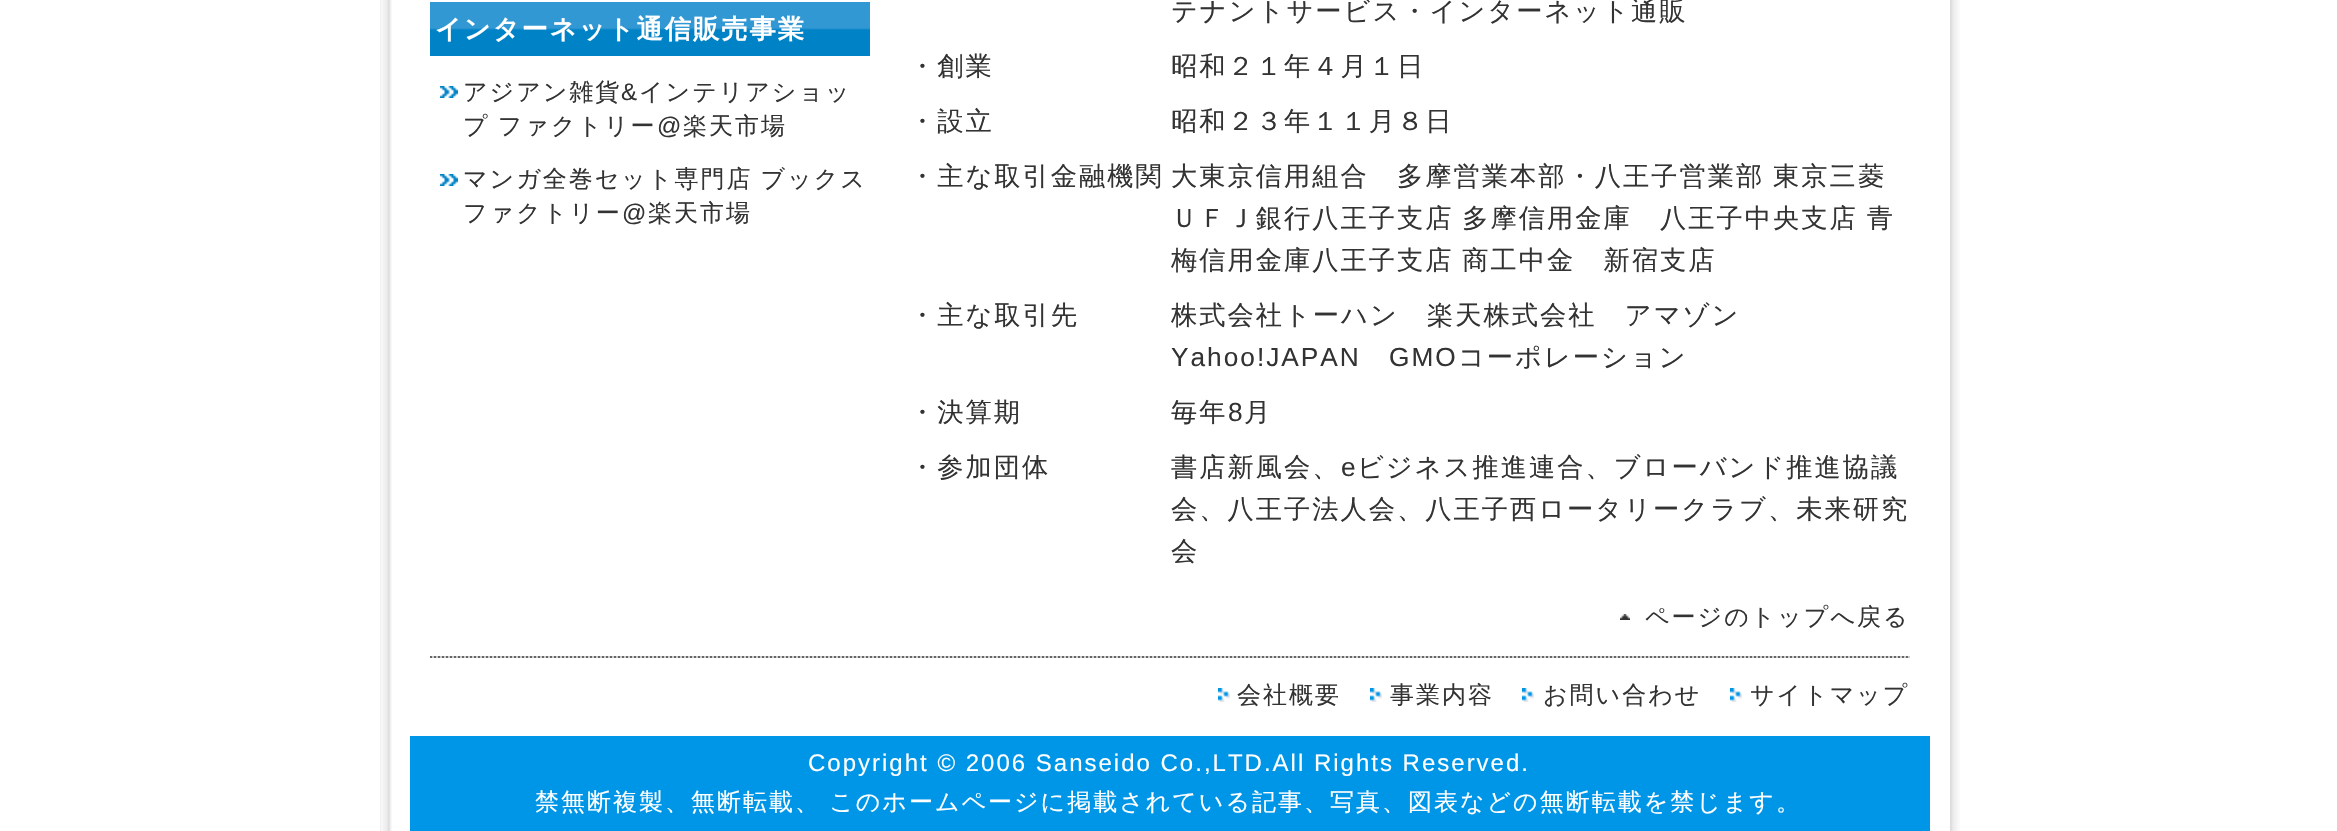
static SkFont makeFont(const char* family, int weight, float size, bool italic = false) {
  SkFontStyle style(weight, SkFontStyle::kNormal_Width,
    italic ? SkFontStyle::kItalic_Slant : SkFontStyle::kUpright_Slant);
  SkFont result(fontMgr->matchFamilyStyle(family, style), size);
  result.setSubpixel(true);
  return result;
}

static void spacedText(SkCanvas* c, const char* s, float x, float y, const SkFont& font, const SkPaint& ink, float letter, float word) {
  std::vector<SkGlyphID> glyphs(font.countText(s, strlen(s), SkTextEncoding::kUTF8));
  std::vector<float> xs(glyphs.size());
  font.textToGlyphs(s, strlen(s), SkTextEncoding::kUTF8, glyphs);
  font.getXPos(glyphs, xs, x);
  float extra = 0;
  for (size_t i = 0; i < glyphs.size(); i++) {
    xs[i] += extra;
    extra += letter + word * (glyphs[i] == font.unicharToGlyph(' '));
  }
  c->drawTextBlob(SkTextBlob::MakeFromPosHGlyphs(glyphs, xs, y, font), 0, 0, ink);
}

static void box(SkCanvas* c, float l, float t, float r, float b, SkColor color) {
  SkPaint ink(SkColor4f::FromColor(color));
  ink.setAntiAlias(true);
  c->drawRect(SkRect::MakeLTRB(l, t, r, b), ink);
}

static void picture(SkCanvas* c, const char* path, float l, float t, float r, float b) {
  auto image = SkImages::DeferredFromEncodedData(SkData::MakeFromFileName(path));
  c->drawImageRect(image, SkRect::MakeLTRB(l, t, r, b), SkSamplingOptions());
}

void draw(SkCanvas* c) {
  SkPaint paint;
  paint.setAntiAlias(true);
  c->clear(0xffffffff);
  picture(c, "img_01.png", 380, 0, 392, 831);
  picture(c, "img_02.png", 1950, 0, 1960, 831);
  picture(c, "img_03.png", 430, 2, 870, 56);
  SkFont face1 = makeFont("WenQuanYi Zen Hei", 700, 26.25f);
  paint.setColor(0xffffffff);
  spacedText(c, "インターネット通信販売事業", 435, 38, face1, paint, 2, 0);
  picture(c, "img_04.png", 440, 86, 458, 98);
  SkFont face2 = makeFont("WenQuanYi Zen Hei", 500, 24);
  paint.setColor(0xff333333);
  spacedText(c, "アジアン雑貨", 463, 100, face2, paint, 2, 0);
  SkFont face3 = makeFont("Liberation Sans", 400, 24);
  spacedText(c, "&", 621, 100, face3, paint, 2, 0);
  spacedText(c, "インテリアショッ", 639, 100, face2, paint, 2, 0);
  spacedText(c, "プ ファクトリー", 463, 134, face2, paint, 2, -1);
  spacedText(c, "@", 657, 134, face3, paint, 2, 0);
  spacedText(c, "楽天市場", 683, 134, face2, paint, 2, 0);
  picture(c, "img_04.png", 440, 174, 458, 186);
  spacedText(c, "マンガ全巻セット専門店 ブックス", 463, 187, face2, paint, 2, -1);
  spacedText(c, "ファクトリー", 463, 221, face2, paint, 2, 0);
  spacedText(c, "@", 622, 221, face3, paint, 2, 0);
  spacedText(c, "楽天市場", 648, 221, face2, paint, 2, 0);
  SkFont face4 = makeFont("WenQuanYi Zen Hei", 500, 26.25f);
  spacedText(c, "テナントサービス・インターネット通販", 1171, 20, face4, paint, 2, 0);
  spacedText(c, "・創業", 909, 75, face4, paint, 2, 0);
  spacedText(c, "昭和２１年４月１日", 1171, 75, face4, paint, 2, 0);
  spacedText(c, "・設立", 909, 130, face4, paint, 2, 0);
  spacedText(c, "昭和２３年１１月８日", 1171, 130, face4, paint, 2, 0);
  spacedText(c, "・主な取引金融機関", 909, 185, face4, paint, 2, 0);
  spacedText(c, "大東京信用組合　多摩営業本部・八王子営業部 東京三菱", 1171, 185, face4, paint, 2, -1);
  spacedText(c, "ＵＦＪ銀行八王子支店 多摩信用金庫　八王子中央支店 青", 1171, 227, face4, paint, 2, -1);
  spacedText(c, "梅信用金庫八王子支店 商工中金　新宿支店", 1171, 269, face4, paint, 2, -1);
  spacedText(c, "・主な取引先", 909, 324, face4, paint, 2, 0);
  spacedText(c, "株式会社トーハン　楽天株式会社　アマゾン", 1171, 324, face4, paint, 2, 0);
  SkFont face5 = makeFont("Liberation Sans", 400, 26.25f);
  spacedText(c, "Yahoo!JAPAN", 1171, 366, face5, paint, 2, 0);
  spacedText(c, "GMO", 1389, 366, face5, paint, 2, 0);
  spacedText(c, "コーポレーション", 1458, 366, face4, paint, 2, 0);
  spacedText(c, "・決算期", 909, 421, face4, paint, 2, 0);
  spacedText(c, "毎年", 1171, 421, face4, paint, 2, 0);
  spacedText(c, "8", 1228, 421, face5, paint, 2, 0);
  spacedText(c, "月", 1244, 421, face4, paint, 2, 0);
  spacedText(c, "・参加団体", 909, 476, face4, paint, 2, 0);
  spacedText(c, "書店新風会、", 1171, 476, face4, paint, 2, 0);
  spacedText(c, "e", 1341, 476, face5, paint, 2, 0);
  spacedText(c, "ビジネス推進連合、ブローバンド推進協議", 1357, 476, face4, paint, 2, 0);
  spacedText(c, "会、八王子法人会、八王子西ロータリークラブ、未来研究", 1171, 518, face4, paint, 2, 0);
  spacedText(c, "会", 1171, 560, face4, paint, 2, 0);
  picture(c, "img_05.png", 1620, 614, 1630, 620);
  spacedText(c, "ページのトップへ戻る", 1645, 625, face2, paint, 2, 0);
  picture(c, "img_06.png", 430, 656, 1910, 658);
  picture(c, "img_07.png", 1218, 688, 1230, 702);
  spacedText(c, "会社概要", 1237, 703, face2, paint, 2, 0);
  picture(c, "img_07.png", 1370, 688, 1382, 702);
  spacedText(c, "事業内容", 1390, 703, face2, paint, 2, 0);
  picture(c, "img_07.png", 1522, 688, 1534, 702);
  spacedText(c, "お問い合わせ", 1543, 703, face2, paint, 2, 0);
  picture(c, "img_07.png", 1730, 688, 1742, 702);
  spacedText(c, "サイトマップ", 1750, 703, face2, paint, 2, 0);
  box(c, 410, 736, 1930, 831, 0xff0096e7);
  paint.setColor(0xffffffff);
  spacedText(c, "Copyright © 2006 Sanseido Co.,LTD.All Rights Reserved.", 808, 771, face3, paint, 2, 0);
  spacedText(c, "禁無断複製、無断転載、 このホームページに掲載されている記事、写真、図表などの無断転載を禁じます。", 535, 810, face2, paint, 2, -1);
}
